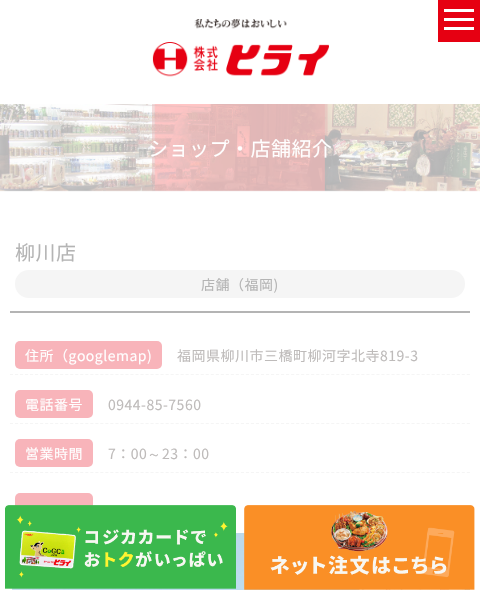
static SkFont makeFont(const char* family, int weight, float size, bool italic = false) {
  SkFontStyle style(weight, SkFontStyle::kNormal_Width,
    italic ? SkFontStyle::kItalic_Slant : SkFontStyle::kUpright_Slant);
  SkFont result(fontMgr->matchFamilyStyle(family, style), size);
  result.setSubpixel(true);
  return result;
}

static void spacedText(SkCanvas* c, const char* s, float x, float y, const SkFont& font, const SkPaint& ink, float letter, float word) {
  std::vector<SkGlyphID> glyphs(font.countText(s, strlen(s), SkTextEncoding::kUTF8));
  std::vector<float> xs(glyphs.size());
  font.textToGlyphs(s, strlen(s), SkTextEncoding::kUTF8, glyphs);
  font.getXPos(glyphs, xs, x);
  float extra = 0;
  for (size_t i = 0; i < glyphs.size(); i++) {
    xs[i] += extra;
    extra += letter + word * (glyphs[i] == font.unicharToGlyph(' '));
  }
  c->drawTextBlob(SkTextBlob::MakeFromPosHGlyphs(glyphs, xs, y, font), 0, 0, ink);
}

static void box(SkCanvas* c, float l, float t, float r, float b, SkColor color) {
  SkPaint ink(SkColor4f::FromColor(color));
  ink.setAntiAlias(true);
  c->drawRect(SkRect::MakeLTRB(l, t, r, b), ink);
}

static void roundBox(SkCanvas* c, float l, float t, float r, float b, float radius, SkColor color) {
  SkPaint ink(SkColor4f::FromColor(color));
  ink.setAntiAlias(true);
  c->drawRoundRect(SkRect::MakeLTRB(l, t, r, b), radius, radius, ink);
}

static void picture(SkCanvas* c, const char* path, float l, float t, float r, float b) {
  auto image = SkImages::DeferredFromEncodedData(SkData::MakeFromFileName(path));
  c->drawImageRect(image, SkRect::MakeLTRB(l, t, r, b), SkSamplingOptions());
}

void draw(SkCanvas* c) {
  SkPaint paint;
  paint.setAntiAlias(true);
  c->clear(0xffffffff);
  picture(c, "img_01.png", 152, 19, 329, 77);
  box(c, 438, 0, 480, 42, 0xffe60012);
  box(c, 444, 9, 474, 12, 0xffffffff);
  box(c, 444, 18, 474, 21, 0xffffffff);
  box(c, 444, 27, 474, 30, 0xffffffff);
  picture(c, "img_02.png", 0, 104, 480, 192);
  SkFont face1 = makeFont("Noto Sans JP", 400, 20);
  paint.setColor(0xffffffff);
  spacedText(c, "ショップ・店舗紹介", 148, 156, face1, paint, 0.5f, 0);
  box(c, 10, 311, 470, 313, 0xffb4b4b4);
  paint.setColor(0xffb4b4b4);
  spacedText(c, "柳川店", 15, 260, face1, paint, 0.5f, 0);
  roundBox(c, 15, 270, 465, 298, 14, 0xfff5f5f5);
  SkFont face2 = makeFont("Noto Sans JP", 400, 14);
  spacedText(c, "店舗（福岡)", 201, 290, face2, paint, 0.5f, 0);
  paint.setStyle(SkPaint::kStroke_Style);
  paint.setStrokeWidth(1);
  paint.setColor(0xfff5f5f5);
  paint.setPathEffect(SkDashPathEffect::Make({{3, 2.02f}}, 0));
  c->drawPath(SkPathBuilder().moveTo(10, 374.5f).lineTo(470, 374.5f).detach(), paint);
  paint.setPathEffect(nullptr);
  roundBox(c, 15, 341, 162, 369, 5, 0xfff8b4ba);
  paint.setStyle(SkPaint::kFill_Style);
  paint.setColor(0xffffffff);
  spacedText(c, "住所（googlemap)", 25, 361, face2, paint, 0.5f, 0);
  paint.setColor(0xffbebbba);
  spacedText(c, "福岡県柳川市三橋町柳河字北寺819-3", 177, 361, face2, paint, 0.5f, 0);
  paint.setStyle(SkPaint::kStroke_Style);
  paint.setColor(0xfff5f5f5);
  paint.setPathEffect(SkDashPathEffect::Make({{3, 2.02f}}, 0));
  c->drawPath(SkPathBuilder().moveTo(10, 423.5f).lineTo(470, 423.5f).detach(), paint);
  paint.setPathEffect(nullptr);
  roundBox(c, 15, 390, 93, 418, 5, 0xfff8b4ba);
  paint.setStyle(SkPaint::kFill_Style);
  paint.setColor(0xffffffff);
  spacedText(c, "電話番号", 25, 410, face2, paint, 0.5f, 0);
  paint.setColor(0xffbebbba);
  spacedText(c, "0944-85-7560", 108, 410, face2, paint, 0.5f, 0);
  paint.setStyle(SkPaint::kStroke_Style);
  paint.setColor(0xfff5f5f5);
  paint.setPathEffect(SkDashPathEffect::Make({{3, 2.02f}}, 0));
  c->drawPath(SkPathBuilder().moveTo(10, 472.5f).lineTo(470, 472.5f).detach(), paint);
  paint.setPathEffect(nullptr);
  roundBox(c, 15, 439, 93, 467, 5, 0xfff8b4ba);
  paint.setStyle(SkPaint::kFill_Style);
  paint.setColor(0xffffffff);
  spacedText(c, "営業時間", 25, 459, face2, paint, 0.5f, 0);
  paint.setColor(0xffbebbba);
  spacedText(c, "7：00", 108, 459, face2, paint, 0.5f, 0);
  SkFont face3 = makeFont("WenQuanYi Zen Hei", 500, 14);
  spacedText(c, "～", 147, 459, face3, paint, 0.5f, 0);
  spacedText(c, "23：00", 162, 459, face2, paint, 0.5f, 0);
  roundBox(c, 15, 493, 93, 521, 5, 0xfff8b4ba);
  picture(c, "img_03.png", 12, 533, 470, 590);
  picture(c, "img_04.png", 5, 505, 236, 589);
  picture(c, "img_05.png", 244, 505, 475, 590);
}
